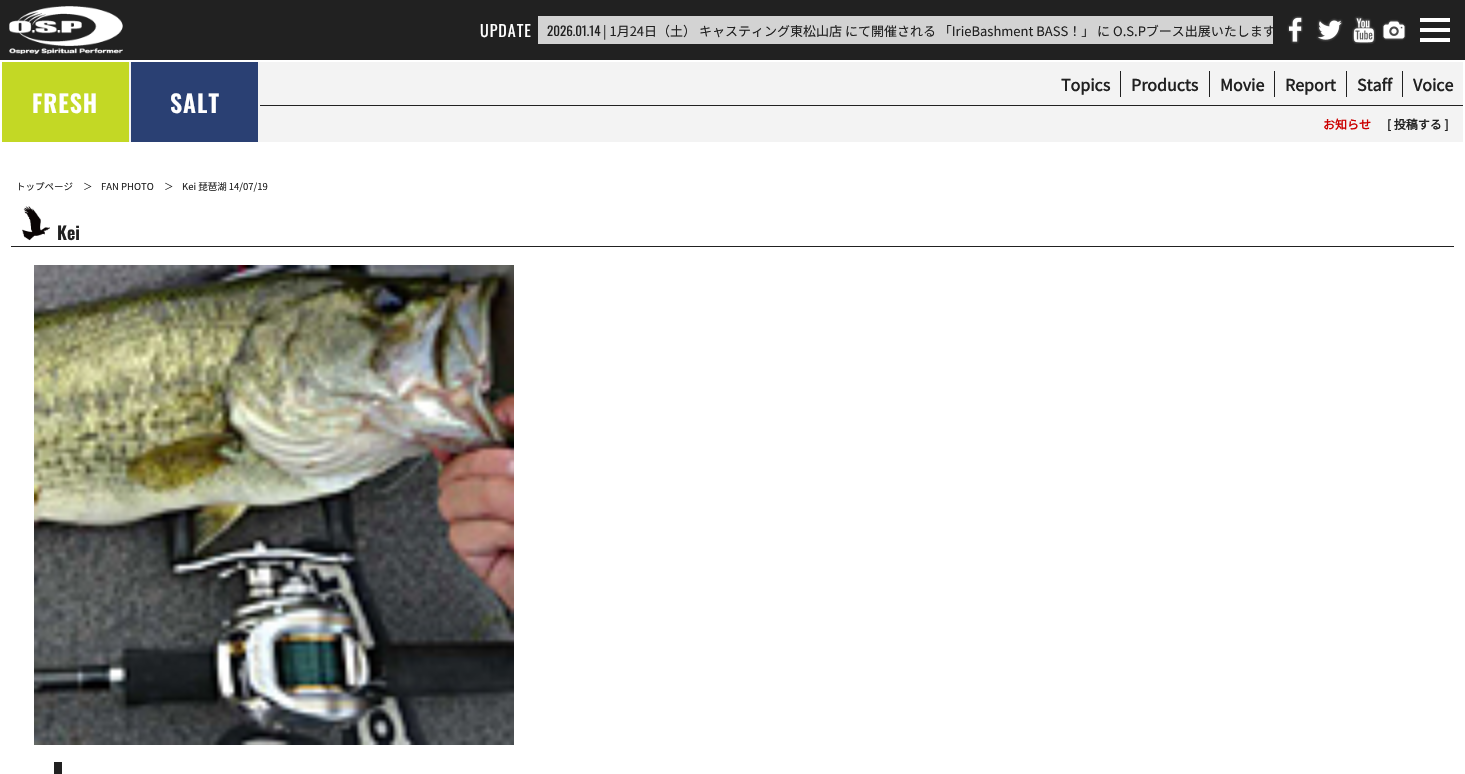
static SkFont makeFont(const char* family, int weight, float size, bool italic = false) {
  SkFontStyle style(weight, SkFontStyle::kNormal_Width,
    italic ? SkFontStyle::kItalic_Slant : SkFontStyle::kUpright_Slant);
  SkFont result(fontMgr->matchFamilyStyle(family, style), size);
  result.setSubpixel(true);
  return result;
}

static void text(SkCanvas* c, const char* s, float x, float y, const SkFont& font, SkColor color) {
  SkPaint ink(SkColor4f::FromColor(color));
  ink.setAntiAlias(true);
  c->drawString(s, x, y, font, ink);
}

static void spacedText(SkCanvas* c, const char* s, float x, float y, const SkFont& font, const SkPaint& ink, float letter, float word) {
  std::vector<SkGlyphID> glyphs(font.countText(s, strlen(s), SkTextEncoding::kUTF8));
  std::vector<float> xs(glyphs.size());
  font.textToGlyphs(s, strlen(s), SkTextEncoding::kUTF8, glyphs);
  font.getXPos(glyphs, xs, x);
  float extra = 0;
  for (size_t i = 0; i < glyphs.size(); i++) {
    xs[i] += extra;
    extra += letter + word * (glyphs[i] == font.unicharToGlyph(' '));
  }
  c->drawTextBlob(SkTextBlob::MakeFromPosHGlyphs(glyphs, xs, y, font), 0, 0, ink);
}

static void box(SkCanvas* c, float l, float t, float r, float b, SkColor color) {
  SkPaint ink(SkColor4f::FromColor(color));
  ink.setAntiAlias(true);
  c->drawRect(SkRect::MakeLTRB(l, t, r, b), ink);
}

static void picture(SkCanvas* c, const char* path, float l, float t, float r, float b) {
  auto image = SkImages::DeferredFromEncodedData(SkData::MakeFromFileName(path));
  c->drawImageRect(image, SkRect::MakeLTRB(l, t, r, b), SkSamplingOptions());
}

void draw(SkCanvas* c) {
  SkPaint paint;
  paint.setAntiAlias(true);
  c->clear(0xffffffff);
  box(c, 0, 0, 1465, 60, 0xff212121);
  picture(c, "img_01.png", 9, 6, 123, 54);
  SkFont face1 = makeFont("Oswald", 400, 16);
  paint.setColor(0xffffffff);
  spacedText(c, "UPDATE", 480, 37, face1, paint, 1, 0);
  box(c, 538, 16, 1273, 44, 0xffd3d3d3);
  SkFont face2 = makeFont("Oswald", 400, 13);
  text(c, "2026.01.14", 547, 36, face2, 0xff212121);
  c->save();
  c->clipRect(SkRect::MakeLTRB(538, 16, 1273, 44));
  SkFont face3 = makeFont("Noto Sans JP", 100, 13);
  text(c, "| 1月24日（土） キャスティング東松山店 にて開催される 「IrieBashment BASS！」 に O.S.Pブース出展いたします", 603, 36, face3, 0xff212121);
  c->restore();
  picture(c, "img_02.png", 1287, 16, 1303, 44);
  picture(c, "img_03.png", 1316, 18, 1343, 42);
  picture(c, "img_04.png", 1352, 16, 1376, 44);
  picture(c, "img_05.png", 1382, 19, 1406, 41);
  box(c, 1420, 18, 1450, 22, 0xffffffff);
  box(c, 1420, 28, 1450, 32, 0xffffffff);
  box(c, 1420, 38, 1450, 42, 0xffffffff);
  box(c, 129, 62, 1463, 142, 0xfff3f3f3);
  box(c, 2, 62, 129, 142, 0xffc3d825);
  SkFont face4 = makeFont("Oswald", 600, 24);
  spacedText(c, "FRESH", 32, 113, face4, paint, 1, 0);
  box(c, 131, 62, 258, 142, 0xff2a4073);
  spacedText(c, "SALT", 170, 113, face4, paint, 1, 0);
  SkFont face5 = makeFont("Noto Sans JP", 700, 16);
  text(c, "Topics", 1061, 91, face5, 0xff212121);
  box(c, 1120, 71, 1121, 97, 0xff212121);
  text(c, "Products", 1131, 91, face5, 0xff212121);
  box(c, 1209, 71, 1210, 97, 0xff212121);
  text(c, "Movie", 1220, 91, face5, 0xff212121);
  box(c, 1274, 71, 1275, 97, 0xff212121);
  text(c, "Report", 1285, 91, face5, 0xff212121);
  box(c, 1346, 71, 1347, 97, 0xff212121);
  text(c, "Staff", 1357, 91, face5, 0xff212121);
  box(c, 1402, 71, 1403, 97, 0xff212121);
  text(c, "Voice", 1413, 91, face5, 0xff212121);
  box(c, 260, 105, 1463, 106, 0xff212121);
  SkFont face6 = makeFont("Noto Sans JP", 700, 12);
  text(c, "お知らせ", 1323, 129, face6, 0xffcc0000);
  text(c, "[ 投稿する ]", 1387, 129, face6, 0xff212121);
  SkFont face7 = makeFont("Noto Sans JP", 100, 9.5f);
  text(c, "トップページ", 16, 190, face7, 0xff212121);
  text(c, "＞", 83, 190, face7, 0xff212121);
  text(c, "FAN PHOTO", 101, 190, face7, 0xff212121);
  text(c, "＞", 164, 190, face7, 0xff212121);
  text(c, "Kei 琵琶湖 14/07/19", 182, 190, face7, 0xff212121);
  picture(c, "img_06.png", 22, 206, 50, 241);
  box(c, 11, 246, 1454, 247, 0xff212121);
  SkFont face8 = makeFont("Oswald", 600, 18);
  text(c, "Kei", 57, 240, face8, 0xff212121);
  picture(c, "img_07.png", 34, 265, 514, 745);
  box(c, 54, 762, 62, 774, 0xff212121);
}
